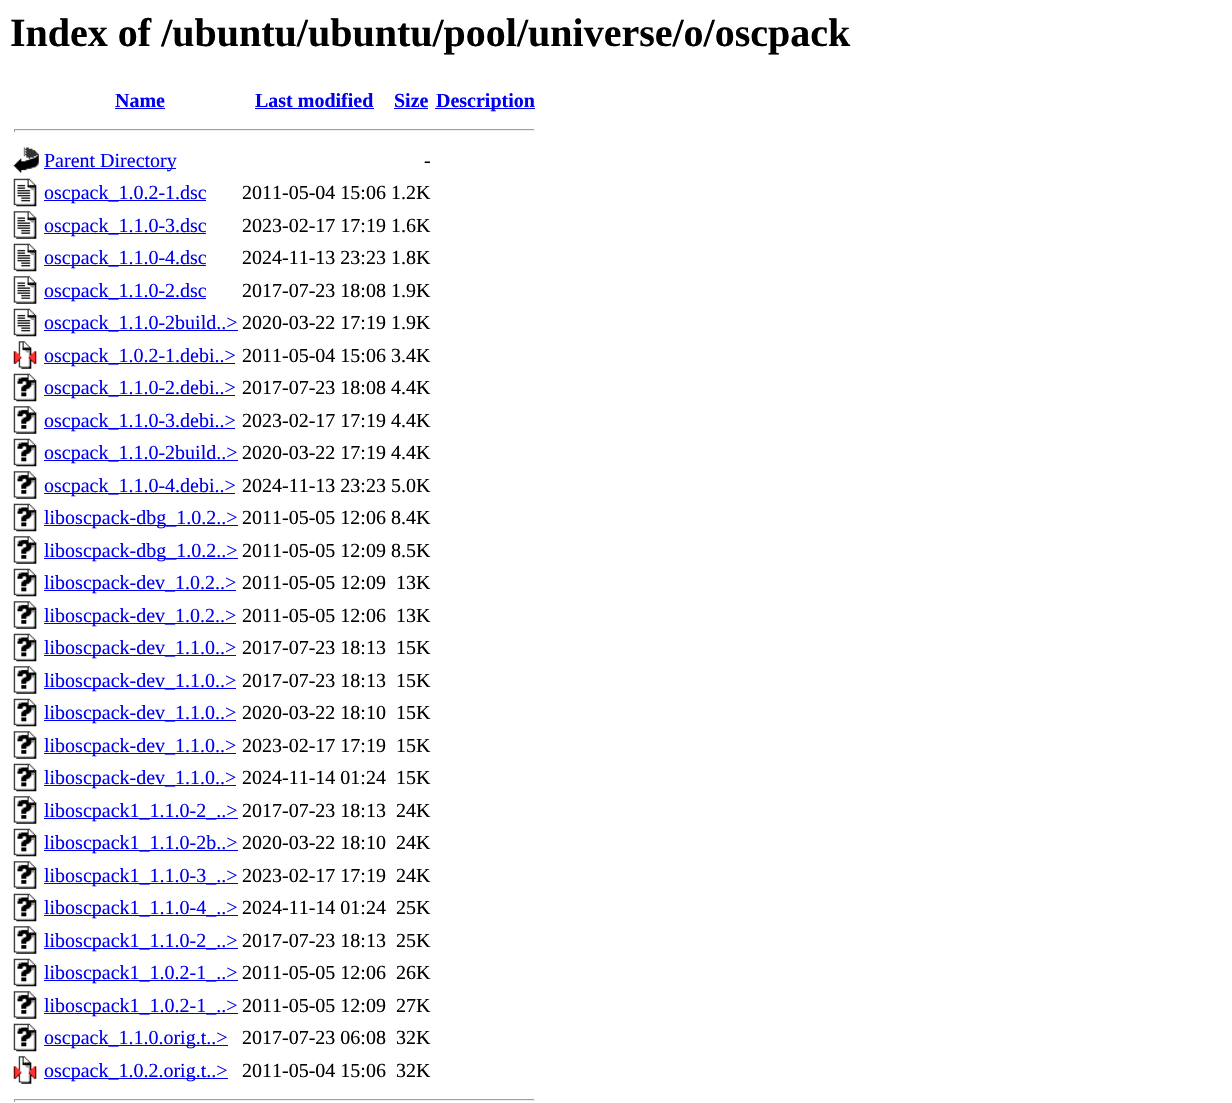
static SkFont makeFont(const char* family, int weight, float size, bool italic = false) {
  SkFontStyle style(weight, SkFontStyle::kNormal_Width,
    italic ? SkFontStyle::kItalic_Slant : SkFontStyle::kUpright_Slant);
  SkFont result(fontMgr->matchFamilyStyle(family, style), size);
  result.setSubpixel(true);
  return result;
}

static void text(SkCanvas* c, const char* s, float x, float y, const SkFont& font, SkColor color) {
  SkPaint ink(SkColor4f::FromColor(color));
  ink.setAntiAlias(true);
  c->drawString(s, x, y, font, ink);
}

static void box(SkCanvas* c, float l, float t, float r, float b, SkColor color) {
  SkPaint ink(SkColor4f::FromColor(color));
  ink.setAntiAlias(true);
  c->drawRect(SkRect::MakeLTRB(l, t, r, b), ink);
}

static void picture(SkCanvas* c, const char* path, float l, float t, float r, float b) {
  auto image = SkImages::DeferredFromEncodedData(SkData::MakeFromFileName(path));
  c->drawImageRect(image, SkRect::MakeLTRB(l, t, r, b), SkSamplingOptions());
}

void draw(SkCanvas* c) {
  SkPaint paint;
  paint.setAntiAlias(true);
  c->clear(0xffffffff);
  SkFont face1 = makeFont("Liberation Serif", 700, 40);
  text(c, "Index of /ubuntu/ubuntu/pool/universe/o/oscpack", 10, 46, face1, 0xff000000);
  SkFont face2 = makeFont("Liberation Serif", 700, 20);
  text(c, "Name", 115, 107, face2, 0xff0000ee);
  box(c, 115, 108, 165, 109, 0xff0000ee);
  text(c, "Last modified", 255, 107, face2, 0xff0000ee);
  box(c, 255, 108, 374, 109, 0xff0000ee);
  text(c, "Size", 394, 107, face2, 0xff0000ee);
  box(c, 394, 108, 428, 109, 0xff0000ee);
  box(c, 435, 108, 535, 109, 0xff0000ee);
  text(c, "Description", 436, 107, face2, 0xff0000ee);
  box(c, 14, 129, 535, 130, 0xff9f9f9f);
  box(c, 534, 129, 535, 132, 0xffeeeeee);
  box(c, 14, 130, 535, 131, 0xffeeeeee);
  box(c, 14, 129, 15, 132, 0xff9f9f9f);
  picture(c, "img_01.png", 13, 147, 39, 173);
  box(c, 44, 168, 176, 169, 0xff0000ee);
  SkFont face3 = makeFont("Liberation Serif", 400, 20);
  text(c, "Parent Directory", 44, 167, face3, 0xff0000ee);
  text(c, "-", 424, 167, face3, 0xff000000);
  picture(c, "img_02.png", 13, 178, 37, 207);
  box(c, 44, 200, 206, 201, 0xff0000ee);
  text(c, "oscpack_1.0.2-1.dsc", 44, 199, face3, 0xff0000ee);
  text(c, "2011-05-04 15:06 1.2K", 242, 199, face3, 0xff000000);
  picture(c, "img_03.png", 13, 211, 37, 239);
  box(c, 44, 233, 206, 234, 0xff0000ee);
  text(c, "oscpack_1.1.0-3.dsc", 44, 232, face3, 0xff0000ee);
  text(c, "2023-02-17 17:19 1.6K", 242, 232, face3, 0xff000000);
  picture(c, "img_02.png", 13, 243, 37, 272);
  box(c, 44, 265, 206, 266, 0xff0000ee);
  text(c, "oscpack_1.1.0-4.dsc", 44, 264, face3, 0xff0000ee);
  text(c, "2024-11-13 23:23 1.8K", 242, 264, face3, 0xff000000);
  picture(c, "img_04.png", 13, 276, 37, 304);
  box(c, 44, 298, 206, 299, 0xff0000ee);
  text(c, "oscpack_1.1.0-2.dsc", 44, 297, face3, 0xff0000ee);
  text(c, "2017-07-23 18:08 1.9K", 242, 297, face3, 0xff000000);
  picture(c, "img_02.png", 13, 308, 37, 337);
  box(c, 44, 330, 238, 331, 0xff0000ee);
  text(c, "oscpack_1.1.0-2build..>", 44, 329, face3, 0xff0000ee);
  text(c, "2020-03-22 17:19 1.9K", 242, 329, face3, 0xff000000);
  picture(c, "img_05.png", 13, 341, 37, 369);
  box(c, 44, 363, 235, 364, 0xff0000ee);
  text(c, "oscpack_1.0.2-1.debi..>", 44, 362, face3, 0xff0000ee);
  text(c, "2011-05-04 15:06 3.4K", 242, 362, face3, 0xff000000);
  picture(c, "img_06.png", 13, 373, 37, 402);
  box(c, 44, 395, 235, 396, 0xff0000ee);
  text(c, "oscpack_1.1.0-2.debi..>", 44, 394, face3, 0xff0000ee);
  text(c, "2017-07-23 18:08 4.4K", 242, 394, face3, 0xff000000);
  picture(c, "img_07.png", 13, 406, 37, 434);
  box(c, 44, 428, 235, 429, 0xff0000ee);
  text(c, "oscpack_1.1.0-3.debi..>", 44, 427, face3, 0xff0000ee);
  text(c, "2023-02-17 17:19 4.4K", 242, 427, face3, 0xff000000);
  picture(c, "img_06.png", 13, 438, 37, 467);
  box(c, 44, 460, 238, 461, 0xff0000ee);
  text(c, "oscpack_1.1.0-2build..>", 44, 459, face3, 0xff0000ee);
  text(c, "2020-03-22 17:19 4.4K", 242, 459, face3, 0xff000000);
  picture(c, "img_07.png", 13, 471, 37, 499);
  box(c, 44, 493, 235, 494, 0xff0000ee);
  text(c, "oscpack_1.1.0-4.debi..>", 44, 492, face3, 0xff0000ee);
  text(c, "2024-11-13 23:23 5.0K", 242, 492, face3, 0xff000000);
  picture(c, "img_06.png", 13, 503, 37, 532);
  box(c, 44, 525, 238, 526, 0xff0000ee);
  text(c, "liboscpack-dbg_1.0.2..>", 44, 524, face3, 0xff0000ee);
  text(c, "2011-05-05 12:06 8.4K", 242, 524, face3, 0xff000000);
  picture(c, "img_07.png", 13, 536, 37, 564);
  box(c, 44, 558, 238, 559, 0xff0000ee);
  text(c, "liboscpack-dbg_1.0.2..>", 44, 557, face3, 0xff0000ee);
  text(c, "2011-05-05 12:09 8.5K", 242, 557, face3, 0xff000000);
  picture(c, "img_06.png", 13, 568, 37, 597);
  box(c, 44, 590, 236, 591, 0xff0000ee);
  text(c, "liboscpack-dev_1.0.2..>", 44, 589, face3, 0xff0000ee);
  text(c, "2011-05-05 12:09", 242, 589, face3, 0xff000000);
  text(c, "13K", 396, 589, face3, 0xff000000);
  picture(c, "img_07.png", 13, 601, 37, 629);
  box(c, 44, 623, 236, 624, 0xff0000ee);
  text(c, "liboscpack-dev_1.0.2..>", 44, 622, face3, 0xff0000ee);
  text(c, "2011-05-05 12:06", 242, 622, face3, 0xff000000);
  text(c, "13K", 396, 622, face3, 0xff000000);
  picture(c, "img_06.png", 13, 633, 37, 662);
  box(c, 44, 655, 236, 656, 0xff0000ee);
  text(c, "liboscpack-dev_1.1.0..>", 44, 654, face3, 0xff0000ee);
  text(c, "2017-07-23 18:13", 242, 654, face3, 0xff000000);
  text(c, "15K", 396, 654, face3, 0xff000000);
  picture(c, "img_07.png", 13, 666, 37, 694);
  box(c, 44, 688, 236, 689, 0xff0000ee);
  text(c, "liboscpack-dev_1.1.0..>", 44, 687, face3, 0xff0000ee);
  text(c, "2017-07-23 18:13", 242, 687, face3, 0xff000000);
  text(c, "15K", 396, 687, face3, 0xff000000);
  picture(c, "img_06.png", 13, 698, 37, 727);
  box(c, 44, 720, 236, 721, 0xff0000ee);
  text(c, "liboscpack-dev_1.1.0..>", 44, 719, face3, 0xff0000ee);
  text(c, "2020-03-22 18:10", 242, 719, face3, 0xff000000);
  text(c, "15K", 396, 719, face3, 0xff000000);
  picture(c, "img_07.png", 13, 731, 37, 759);
  box(c, 44, 753, 236, 754, 0xff0000ee);
  text(c, "liboscpack-dev_1.1.0..>", 44, 752, face3, 0xff0000ee);
  text(c, "2023-02-17 17:19", 242, 752, face3, 0xff000000);
  text(c, "15K", 396, 752, face3, 0xff000000);
  picture(c, "img_06.png", 13, 763, 37, 792);
  box(c, 44, 785, 236, 786, 0xff0000ee);
  text(c, "liboscpack-dev_1.1.0..>", 44, 784, face3, 0xff0000ee);
  text(c, "2024-11-14 01:24", 242, 784, face3, 0xff000000);
  text(c, "15K", 396, 784, face3, 0xff000000);
  picture(c, "img_07.png", 13, 796, 37, 824);
  box(c, 44, 818, 238, 819, 0xff0000ee);
  text(c, "liboscpack1_1.1.0-2_..>", 44, 817, face3, 0xff0000ee);
  text(c, "2017-07-23 18:13", 242, 817, face3, 0xff000000);
  text(c, "24K", 396, 817, face3, 0xff000000);
  picture(c, "img_06.png", 13, 828, 37, 857);
  box(c, 44, 850, 238, 851, 0xff0000ee);
  text(c, "liboscpack1_1.1.0-2b..>", 44, 849, face3, 0xff0000ee);
  text(c, "2020-03-22 18:10", 242, 849, face3, 0xff000000);
  text(c, "24K", 396, 849, face3, 0xff000000);
  picture(c, "img_07.png", 13, 861, 37, 889);
  box(c, 44, 883, 238, 884, 0xff0000ee);
  text(c, "liboscpack1_1.1.0-3_..>", 44, 882, face3, 0xff0000ee);
  text(c, "2023-02-17 17:19", 242, 882, face3, 0xff000000);
  text(c, "24K", 396, 882, face3, 0xff000000);
  picture(c, "img_06.png", 13, 893, 37, 922);
  box(c, 44, 915, 238, 916, 0xff0000ee);
  text(c, "liboscpack1_1.1.0-4_..>", 44, 914, face3, 0xff0000ee);
  text(c, "2024-11-14 01:24", 242, 914, face3, 0xff000000);
  text(c, "25K", 396, 914, face3, 0xff000000);
  picture(c, "img_07.png", 13, 926, 37, 954);
  box(c, 44, 948, 238, 949, 0xff0000ee);
  text(c, "liboscpack1_1.1.0-2_..>", 44, 947, face3, 0xff0000ee);
  text(c, "2017-07-23 18:13", 242, 947, face3, 0xff000000);
  text(c, "25K", 396, 947, face3, 0xff000000);
  picture(c, "img_06.png", 13, 958, 37, 987);
  box(c, 44, 980, 238, 981, 0xff0000ee);
  text(c, "liboscpack1_1.0.2-1_..>", 44, 979, face3, 0xff0000ee);
  text(c, "2011-05-05 12:06", 242, 979, face3, 0xff000000);
  text(c, "26K", 396, 979, face3, 0xff000000);
  picture(c, "img_07.png", 13, 991, 37, 1019);
  box(c, 44, 1013, 238, 1014, 0xff0000ee);
  text(c, "liboscpack1_1.0.2-1_..>", 44, 1012, face3, 0xff0000ee);
  text(c, "2011-05-05 12:09", 242, 1012, face3, 0xff000000);
  text(c, "27K", 396, 1012, face3, 0xff000000);
  picture(c, "img_08.png", 13, 1023, 37, 1052);
  box(c, 44, 1045, 228, 1046, 0xff0000ee);
  text(c, "oscpack_1.1.0.orig.t..>", 44, 1044, face3, 0xff0000ee);
  text(c, "2017-07-23 06:08", 242, 1044, face3, 0xff000000);
  text(c, "32K", 396, 1044, face3, 0xff000000);
  picture(c, "img_05.png", 13, 1056, 37, 1084);
  box(c, 44, 1078, 228, 1079, 0xff0000ee);
  text(c, "oscpack_1.0.2.orig.t..>", 44, 1077, face3, 0xff0000ee);
  text(c, "2011-05-04 15:06", 242, 1077, face3, 0xff000000);
  text(c, "32K", 396, 1077, face3, 0xff000000);
  box(c, 14, 1099, 535, 1100, 0xff9f9f9f);
  box(c, 534, 1099, 535, 1102, 0xffeeeeee);
  box(c, 14, 1100, 535, 1101, 0xffeeeeee);
  box(c, 14, 1099, 15, 1102, 0xff9f9f9f);
}
